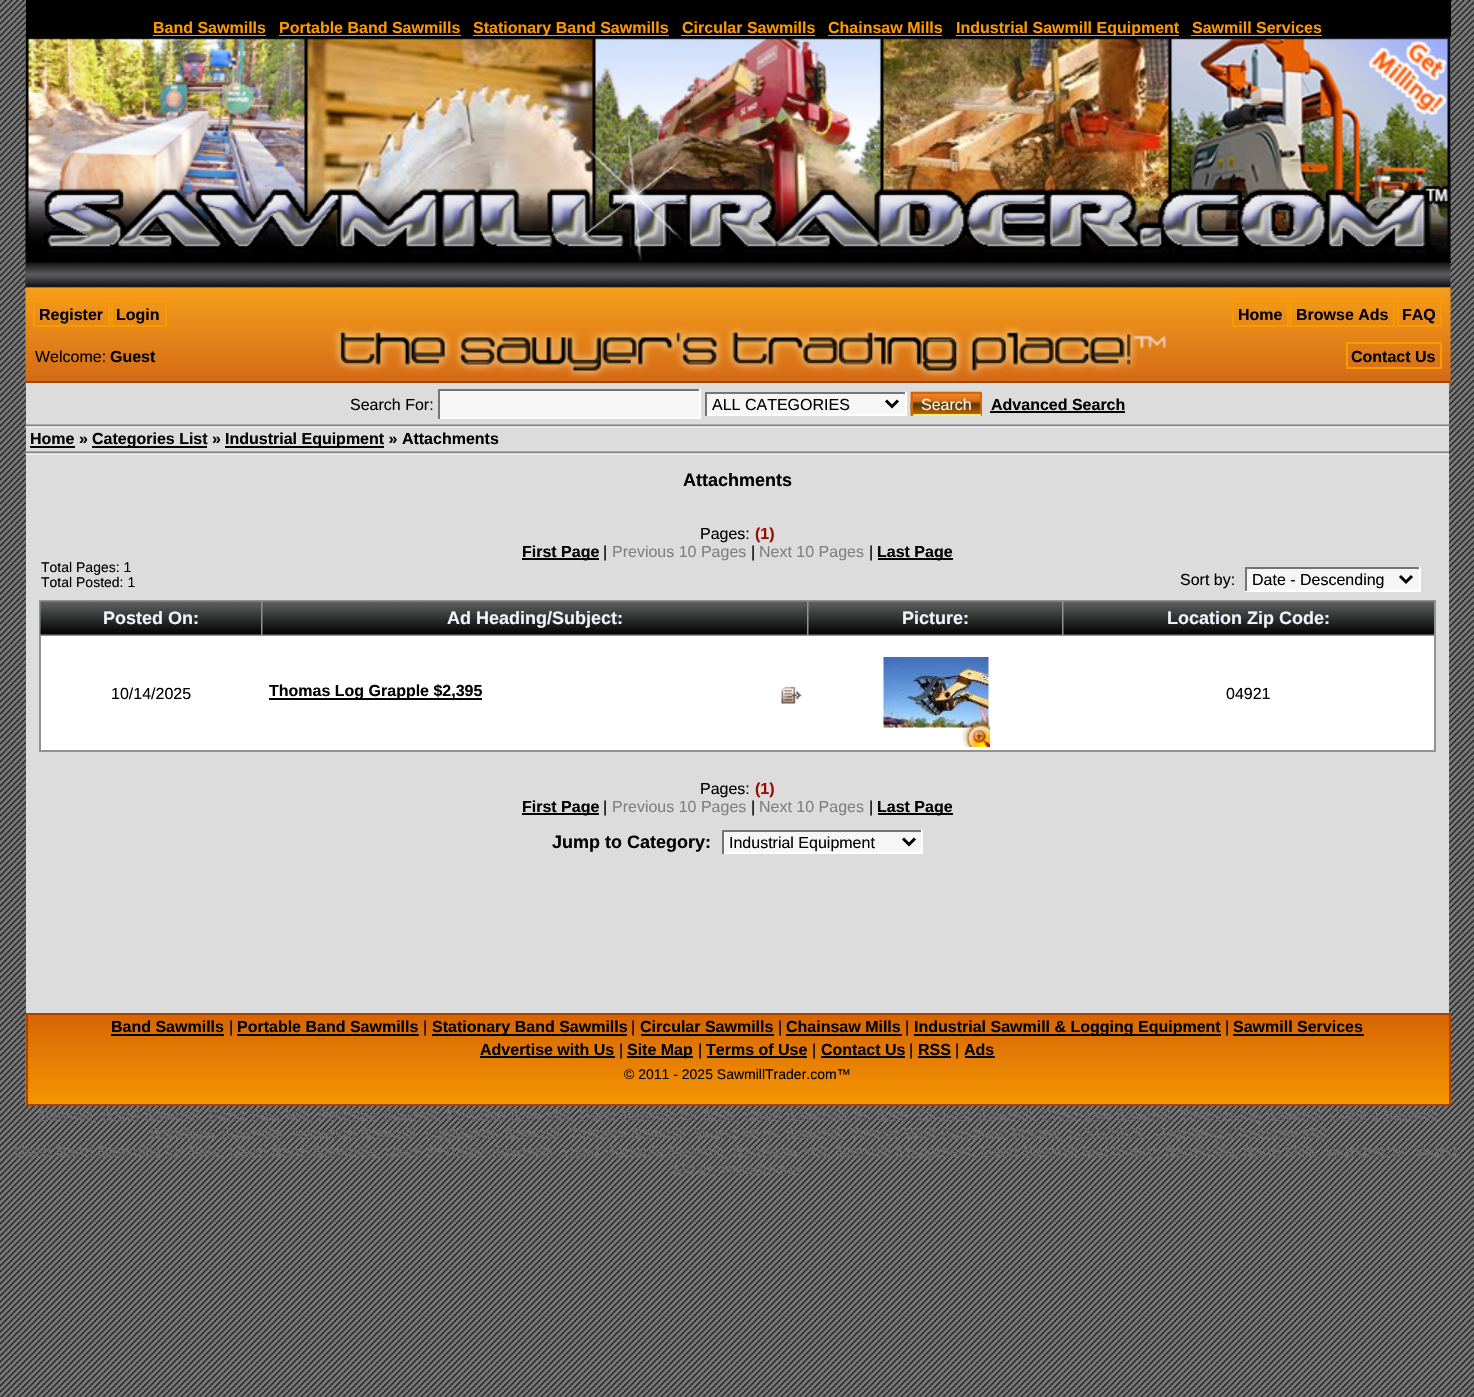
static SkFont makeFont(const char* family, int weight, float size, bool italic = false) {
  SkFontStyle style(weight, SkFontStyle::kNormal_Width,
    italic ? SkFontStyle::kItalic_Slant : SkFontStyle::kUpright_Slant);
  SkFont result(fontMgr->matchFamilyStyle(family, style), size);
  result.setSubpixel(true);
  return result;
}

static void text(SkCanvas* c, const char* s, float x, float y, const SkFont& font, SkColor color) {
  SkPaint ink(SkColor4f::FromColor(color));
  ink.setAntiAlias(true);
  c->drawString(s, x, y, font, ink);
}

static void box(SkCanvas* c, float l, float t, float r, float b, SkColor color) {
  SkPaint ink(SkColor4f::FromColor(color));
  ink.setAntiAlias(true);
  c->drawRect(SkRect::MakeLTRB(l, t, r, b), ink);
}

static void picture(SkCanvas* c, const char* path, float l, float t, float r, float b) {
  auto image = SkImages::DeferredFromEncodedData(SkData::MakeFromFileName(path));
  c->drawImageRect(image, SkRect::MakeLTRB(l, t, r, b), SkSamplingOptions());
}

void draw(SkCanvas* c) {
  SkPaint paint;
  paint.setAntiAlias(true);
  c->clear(0xffffffff);
  picture(c, "img_01.png", 0, 0, 1474, 1397);
  box(c, 26, 0, 1451, 36, 0xff000000);
  SkFont face1 = makeFont("Liberation Sans", 700, 16);
  text(c, "Band Sawmills", 153, 33, face1, 0xffff9900);
  box(c, 153, 35, 266, 36, 0xffff9900);
  text(c, "Portable Band Sawmills", 279, 33, face1, 0xffff9900);
  box(c, 279, 35, 461, 36, 0xffff9900);
  box(c, 473, 35, 669, 36, 0xffff9900);
  picture(c, "img_02.png", 25, 36, 1451, 162);
  text(c, "Stationary Band Sawmills", 473, 33, face1, 0xffff9900);
  text(c, "Circular Sawmills", 682, 33, face1, 0xffff9900);
  box(c, 681, 35, 815, 36, 0xffff9900);
  text(c, "Chainsaw Mills", 828, 33, face1, 0xffff9900);
  box(c, 828, 35, 942, 36, 0xffff9900);
  box(c, 956, 35, 1179, 36, 0xffff9900);
  text(c, "Industrial Sawmill Equipment", 956, 33, face1, 0xffff9900);
  text(c, "Sawmill Services", 1192, 33, face1, 0xffff9900);
  box(c, 1191, 35, 1322, 36, 0xffff9900);
  picture(c, "img_03.png", 25, 36, 1451, 261);
  box(c, 26, 261, 1451, 263, 0xff000000);
  picture(c, "img_04.png", 25, 262, 1451, 288);
  box(c, 26, 287, 1451, 289, 0xffd56403);
  picture(c, "img_05.png", 25, 288, 1451, 1106);
  paint.setStyle(SkPaint::kStroke_Style);
  paint.setStrokeWidth(2);
  paint.setColor(0xfff89b02);
  c->drawRect(SkRect::MakeLTRB(34, 301, 109, 326), paint);
  text(c, "Register", 39, 320, face1, 0xff000000);
  c->drawRect(SkRect::MakeLTRB(112, 301, 166, 326), paint);
  text(c, "Login", 116, 320, face1, 0xff000000);
  SkFont face2 = makeFont("Liberation Sans", 400, 16);
  text(c, "Welcome:", 35, 362, face2, 0xff000000);
  text(c, "Guest", 110, 362, face1, 0xff000000);
  c->drawRect(SkRect::MakeLTRB(1233, 301, 1288, 326), paint);
  text(c, "Home", 1238, 320, face1, 0xff000000);
  c->drawRect(SkRect::MakeLTRB(1291, 301, 1394, 326), paint);
  text(c, "Browse Ads", 1296, 320, face1, 0xff000000);
  c->drawRect(SkRect::MakeLTRB(1398, 301, 1441, 326), paint);
  text(c, "FAQ", 1402, 320, face1, 0xff000000);
  c->drawRect(SkRect::MakeLTRB(1347, 343, 1441, 368), paint);
  text(c, "Contact Us", 1351, 362, face1, 0xff000000);
  box(c, 26, 383, 1449, 1013, 0xffdcdcdc);
  box(c, 26, 381, 1451, 383, 0xffa84402);
  text(c, "Search For:", 350, 410, face2, 0xff000000);
  box(c, 440, 391, 699, 417, 0xfff6f6f6);
  box(c, 438, 389, 701, 391, 0xff727476);
  box(c, 699, 389, 701, 419, 0xffffffff);
  box(c, 438, 417, 701, 419, 0xffffffff);
  box(c, 438, 389, 440, 419, 0xff727476);
  box(c, 707, 394, 905, 414, 0xfff6f6f6);
  box(c, 705, 392, 906, 394, 0xff727476);
  box(c, 905, 392, 907, 416, 0xffffffff);
  box(c, 705, 414, 906, 416, 0xffffffff);
  box(c, 705, 392, 707, 416, 0xff727476);
  paint.setStrokeWidth(3);
  paint.setColor(0xff000000);
  c->drawPath(SkPathBuilder().moveTo(886, 400.5f).lineTo(892, 406.5f).lineTo(898, 400.5f).detach(), paint);
  text(c, "ALL CATEGORIES", 712, 410, face2, 0xff000000);
  picture(c, "img_06.png", 910, 391, 981, 416);
  box(c, 911, 392, 981, 394, 0xffd56403);
  box(c, 980, 392, 982, 416, 0xffd56403);
  box(c, 911, 414, 981, 416, 0xfffeee6e);
  box(c, 911, 392, 913, 416, 0xffd56403);
  text(c, "Search", 921, 410, face2, 0xfff2f2f2);
  text(c, "Advanced Search", 991, 410, face1, 0xff000000);
  box(c, 990, 411, 1125, 413, 0xff000000);
  picture(c, "img_07.png", 25, 424, 1449, 428);
  text(c, "Home »", 30, 444, face1, 0xff000000);
  box(c, 30, 446, 75, 448, 0xff000000);
  box(c, 92, 446, 207, 448, 0xff000000);
  text(c, "Categories List »", 92, 444, face1, 0xff000000);
  box(c, 225, 446, 384, 448, 0xff000000);
  text(c, "Industrial Equipment » Attachments", 225, 444, face1, 0xff000000);
  picture(c, "img_08.png", 25, 451, 1449, 455);
  SkFont face3 = makeFont("Liberation Sans", 700, 18);
  text(c, "Attachments", 683, 486, face3, 0xff000000);
  text(c, "Pages:", 700, 539, face2, 0xff000000);
  text(c, "(1)", 755, 539, face1, 0xff9c0901);
  box(c, 522, 558, 599, 560, 0xff000000);
  text(c, "First Page", 522, 557, face1, 0xff000000);
  text(c, "|", 603, 557, face2, 0xff000000);
  text(c, "Previous 10 Pages", 612, 557, face2, 0xff808080);
  text(c, "|", 751, 557, face2, 0xff000000);
  text(c, "Next 10 Pages", 759, 557, face2, 0xff808080);
  text(c, "|", 869, 557, face2, 0xff000000);
  box(c, 878, 558, 953, 560, 0xff000000);
  text(c, "Last Page", 877, 557, face1, 0xff000000);
  SkFont face4 = makeFont("Liberation Sans", 400, 14);
  text(c, "Total Pages: 1", 41, 572, face4, 0xff000000);
  text(c, "Total Posted: 1", 41, 587, face4, 0xff000000);
  text(c, "Sort by:", 1180, 585, face2, 0xff000000);
  box(c, 1247, 569, 1419, 590, 0xfff6f6f6);
  box(c, 1245, 567, 1421, 569, 0xff727476);
  box(c, 1419, 567, 1421, 591, 0xffffffff);
  box(c, 1245, 590, 1421, 592, 0xffffffff);
  box(c, 1245, 567, 1247, 591, 0xff727476);
  c->drawPath(SkPathBuilder().moveTo(1400, 576).lineTo(1406, 582).lineTo(1412, 576).detach(), paint);
  text(c, "Date - Descending", 1252, 585, face2, 0xff000000);
  box(c, 39, 600, 1436, 752, 0xff929292);
  picture(c, "img_09.png", 40, 601, 261, 635);
  text(c, "Posted On:", 103, 624, face3, 0xfff2f2ff);
  picture(c, "img_10.png", 262, 601, 807, 635);
  text(c, "Ad Heading/Subject:", 447, 624, face3, 0xfff2f2ff);
  picture(c, "img_11.png", 808, 601, 1062, 635);
  text(c, "Picture:", 902, 624, face3, 0xfff2f2ff);
  picture(c, "img_12.png", 1063, 601, 1434, 635);
  text(c, "Location Zip Code:", 1167, 624, face3, 0xfff2f2ff);
  box(c, 41, 636, 1434, 750, 0xffffffff);
  text(c, "10/14/2025", 111, 699, face2, 0xff000000);
  box(c, 269, 698, 482, 700, 0xff000000);
  text(c, "Thomas Log Grapple $2,395", 269, 696, face1, 0xff000000);
  picture(c, "img_13.png", 781, 686, 802, 704);
  picture(c, "img_14.png", 883, 657, 989, 728);
  picture(c, "img_15.png", 961, 718, 990, 747);
  text(c, "04921", 1226, 699, face2, 0xff000000);
  text(c, "Pages:", 700, 794, face2, 0xff000000);
  text(c, "(1)", 755, 794, face1, 0xff9c0901);
  box(c, 522, 813, 599, 815, 0xff000000);
  text(c, "First Page", 522, 812, face1, 0xff000000);
  text(c, "|", 603, 812, face2, 0xff000000);
  text(c, "Previous 10 Pages", 612, 812, face2, 0xff808080);
  text(c, "|", 751, 812, face2, 0xff000000);
  text(c, "Next 10 Pages", 759, 812, face2, 0xff808080);
  text(c, "|", 869, 812, face2, 0xff000000);
  box(c, 878, 813, 953, 815, 0xff000000);
  text(c, "Last Page", 877, 812, face1, 0xff000000);
  text(c, "Jump to Category:", 552, 848, face3, 0xff000000);
  box(c, 724, 832, 921, 852, 0xfff6f6f6);
  box(c, 722, 830, 923, 832, 0xff727476);
  box(c, 921, 830, 923, 854, 0xffffffff);
  box(c, 722, 852, 923, 854, 0xffffffff);
  box(c, 722, 830, 724, 854, 0xff727476);
  c->drawPath(SkPathBuilder().moveTo(903, 838.5f).lineTo(909, 844.5f).lineTo(915, 838.5f).detach(), paint);
  text(c, "Industrial Equipment", 729, 848, face2, 0xff000000);
  picture(c, "img_16.png", 25, 1014, 1449, 1106);
  box(c, 26, 1013, 1451, 1015, 0xffa84402);
  box(c, 1449, 1013, 1451, 1106, 0xffa84402);
  box(c, 26, 1104, 1451, 1106, 0xffa84402);
  box(c, 26, 1013, 28, 1106, 0xffa84402);
  text(c, "Band Sawmills", 111, 1032, face1, 0xff000000);
  box(c, 111, 1034, 224, 1036, 0xff000000);
  text(c, "|", 229, 1032, face2, 0xff000000);
  text(c, "Portable Band Sawmills", 237, 1032, face1, 0xff000000);
  box(c, 237, 1034, 419, 1036, 0xff000000);
  text(c, "|", 423, 1032, face2, 0xff000000);
  box(c, 432, 1034, 627, 1036, 0xff000000);
  text(c, "Stationary Band Sawmills", 432, 1032, face1, 0xff000000);
  text(c, "|", 631, 1032, face2, 0xff000000);
  text(c, "Circular Sawmills", 640, 1032, face1, 0xff000000);
  box(c, 641, 1034, 774, 1036, 0xff000000);
  text(c, "|", 778, 1032, face2, 0xff000000);
  text(c, "Chainsaw Mills", 786, 1032, face1, 0xff000000);
  box(c, 786, 1034, 902, 1036, 0xff000000);
  text(c, "|", 905, 1032, face2, 0xff000000);
  box(c, 914, 1034, 1221, 1036, 0xff000000);
  text(c, "Industrial Sawmill & Logging Equipment", 914, 1032, face1, 0xff000000);
  text(c, "|", 1225, 1032, face2, 0xff000000);
  text(c, "Sawmill Services", 1233, 1032, face1, 0xff000000);
  box(c, 1233, 1034, 1364, 1036, 0xff000000);
  text(c, "Advertise with Us", 480, 1055, face1, 0xff000000);
  box(c, 480, 1056, 615, 1058, 0xff000000);
  text(c, "|", 619, 1055, face2, 0xff000000);
  box(c, 627, 1056, 693, 1058, 0xff000000);
  text(c, "Site Map", 627, 1055, face1, 0xff000000);
  text(c, "|", 698, 1055, face2, 0xff000000);
  text(c, "Terms of Use", 706, 1055, face1, 0xff000000);
  box(c, 707, 1056, 807, 1058, 0xff000000);
  text(c, "|", 812, 1055, face2, 0xff000000);
  text(c, "Contact Us", 821, 1055, face1, 0xff000000);
  box(c, 821, 1056, 905, 1058, 0xff000000);
  text(c, "|", 909, 1055, face2, 0xff000000);
  text(c, "RSS", 918, 1055, face1, 0xff000000);
  box(c, 918, 1056, 951, 1058, 0xff000000);
  text(c, "|", 955, 1055, face2, 0xff000000);
  text(c, "Ads", 964, 1055, face1, 0xff000000);
  box(c, 965, 1056, 995, 1058, 0xff000000);
  text(c, "© 2011 - 2025 SawmillTrader.com™", 624, 1079, face4, 0xff000000);
  text(c, "Sawmill, Band Sawmill, Band Saw Mill, Portable Sawmill, Portable Saw Mill, Used Sawmill for Sale, Used Sawmills for Sale, Circular Sawmill, Chainsaw Sawmill, TimberKing Sawmill, Cook's Sawmill", 38, 1121, face2, 0xff666666);
  text(c, "Bandsaw Sawmills, Norwood Sawmill, LogMaster Sawmill, Timbery Sawmill, Wood-Mizer Sawmill, Timber Wolf Bandsaw Blades, LOGOSOL, Granberg Chainsaw Mill", 150, 1139, face2, 0xff666666);
  text(c, "Used Band Sawmills for Sale, Used Band Sawmills, Used Portable Sawmills, Used Portable Sawmill, Bandsaw Mill, Sawmill Equipment, Used Sawmill Machinery, Bandmills, Band Mills, Woodmizer, Wood-", 14, 1157, face2, 0xff666666);
  text(c, "Mizer, Woodmiser", 673, 1175, face2, 0xff666666);
}
